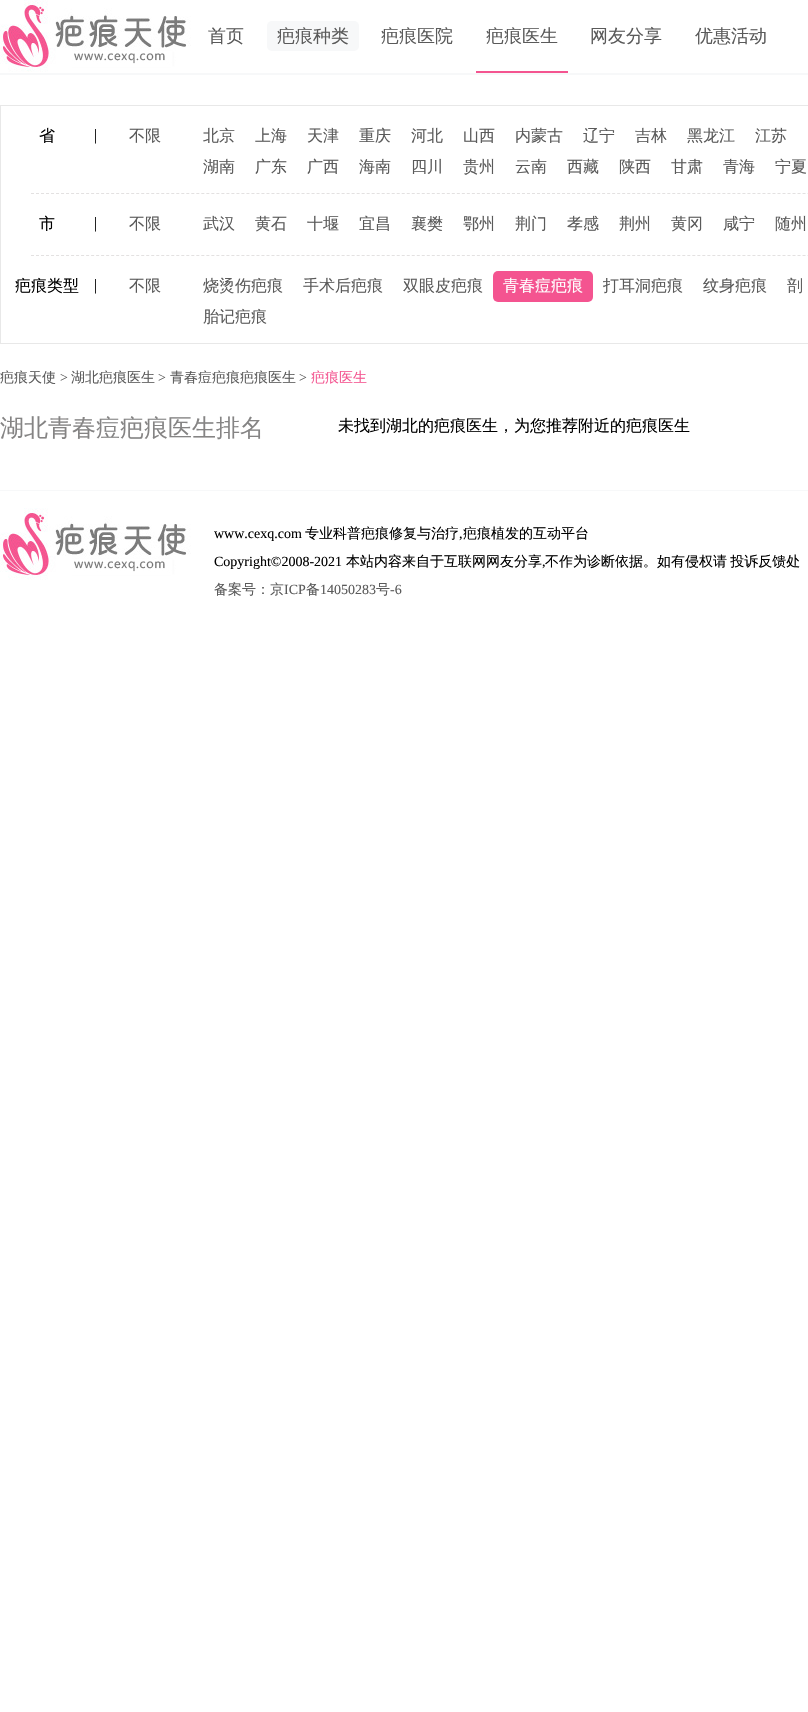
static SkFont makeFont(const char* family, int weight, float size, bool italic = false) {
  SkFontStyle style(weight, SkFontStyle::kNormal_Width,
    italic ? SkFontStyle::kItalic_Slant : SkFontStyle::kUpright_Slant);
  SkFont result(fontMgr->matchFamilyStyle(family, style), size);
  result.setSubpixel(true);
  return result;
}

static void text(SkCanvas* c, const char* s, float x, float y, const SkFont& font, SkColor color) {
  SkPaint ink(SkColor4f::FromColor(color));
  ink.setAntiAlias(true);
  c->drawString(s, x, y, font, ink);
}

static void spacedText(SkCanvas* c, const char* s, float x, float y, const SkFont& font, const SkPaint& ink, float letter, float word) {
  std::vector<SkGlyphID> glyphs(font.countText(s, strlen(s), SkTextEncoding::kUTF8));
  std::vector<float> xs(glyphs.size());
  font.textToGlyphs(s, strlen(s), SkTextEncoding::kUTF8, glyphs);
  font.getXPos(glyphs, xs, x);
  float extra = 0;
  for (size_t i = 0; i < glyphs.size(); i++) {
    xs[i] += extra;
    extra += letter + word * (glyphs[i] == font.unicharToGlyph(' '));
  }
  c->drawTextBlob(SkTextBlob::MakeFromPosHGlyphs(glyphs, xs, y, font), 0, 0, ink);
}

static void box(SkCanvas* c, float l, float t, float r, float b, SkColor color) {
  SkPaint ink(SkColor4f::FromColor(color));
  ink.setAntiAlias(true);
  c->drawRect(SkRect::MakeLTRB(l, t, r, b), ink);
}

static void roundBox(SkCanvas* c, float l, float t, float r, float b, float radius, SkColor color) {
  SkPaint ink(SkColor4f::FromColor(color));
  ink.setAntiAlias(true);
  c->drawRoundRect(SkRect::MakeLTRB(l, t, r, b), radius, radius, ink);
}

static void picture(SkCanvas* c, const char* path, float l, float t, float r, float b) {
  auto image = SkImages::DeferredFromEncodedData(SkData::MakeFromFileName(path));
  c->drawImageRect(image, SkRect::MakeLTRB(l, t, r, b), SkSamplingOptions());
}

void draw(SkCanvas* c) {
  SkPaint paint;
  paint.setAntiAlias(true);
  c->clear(0xffffffff);
  box(c, 0, 73, 808, 75, 0xfff7f8f9);
  picture(c, "img_01.png", 0, 0, 191, 72);
  SkFont face1 = makeFont("WenQuanYi Zen Hei", 500, 18);
  text(c, "首页", 208, 42, face1, 0xff5a5a5a);
  roundBox(c, 267, 21, 359, 51, 5, 0xfff7f8f9);
  text(c, "疤痕种类", 277, 42, face1, 0xff5a5a5a);
  text(c, "疤痕医院", 381, 42, face1, 0xff5a5a5a);
  box(c, 476, 71, 568, 73, 0xfff45490);
  text(c, "疤痕医生", 486, 42, face1, 0xff5a5a5a);
  text(c, "网友分享", 590, 42, face1, 0xff5a5a5a);
  text(c, "优惠活动", 695, 42, face1, 0xff5a5a5a);
  paint.setStyle(SkPaint::kStroke_Style);
  paint.setStrokeWidth(1);
  paint.setColor(0xffe8e8e8);
  c->drawRect(SkRect::MakeLTRB(0.5f, 105.5f, 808.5f, 343.5f), paint);
  SkFont face2 = makeFont("WenQuanYi Zen Hei", 500, 16);
  text(c, "省", 39, 141, face2, 0xff000000);
  SkFont face3 = makeFont("Liberation Serif", 400, 16);
  text(c, "|", 94, 140, face3, 0xff000000);
  text(c, "不限", 129, 141, face2, 0xff5a5a5a);
  text(c, "北京", 203, 141, face2, 0xff5a5a5a);
  text(c, "上海", 255, 141, face2, 0xff5a5a5a);
  text(c, "天津", 307, 141, face2, 0xff5a5a5a);
  text(c, "重庆", 359, 141, face2, 0xff5a5a5a);
  text(c, "河北", 411, 141, face2, 0xff5a5a5a);
  text(c, "山西", 463, 141, face2, 0xff5a5a5a);
  text(c, "内蒙古", 515, 141, face2, 0xff5a5a5a);
  text(c, "辽宁", 583, 141, face2, 0xff5a5a5a);
  text(c, "吉林", 635, 141, face2, 0xff5a5a5a);
  text(c, "黑龙江", 687, 141, face2, 0xff5a5a5a);
  text(c, "江苏", 755, 141, face2, 0xff5a5a5a);
  text(c, "湖南", 203, 172, face2, 0xff5a5a5a);
  text(c, "广东", 255, 172, face2, 0xff5a5a5a);
  text(c, "广西", 307, 172, face2, 0xff5a5a5a);
  text(c, "海南", 359, 172, face2, 0xff5a5a5a);
  text(c, "四川", 411, 172, face2, 0xff5a5a5a);
  text(c, "贵州", 463, 172, face2, 0xff5a5a5a);
  text(c, "云南", 515, 172, face2, 0xff5a5a5a);
  text(c, "西藏", 567, 172, face2, 0xff5a5a5a);
  text(c, "陕西", 619, 172, face2, 0xff5a5a5a);
  text(c, "甘肃", 671, 172, face2, 0xff5a5a5a);
  text(c, "青海", 723, 172, face2, 0xff5a5a5a);
  text(c, "宁夏", 775, 172, face2, 0xff5a5a5a);
  paint.setColor(0xffe3e1e1);
  paint.setPathEffect(SkDashPathEffect::Make({{3, 2.01f}}, 0));
  c->drawPath(SkPathBuilder().moveTo(31, 193.5f).lineTo(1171, 193.5f).detach(), paint);
  paint.setPathEffect(nullptr);
  text(c, "市", 39, 229, face2, 0xff000000);
  text(c, "|", 94, 228, face3, 0xff000000);
  text(c, "不限", 129, 229, face2, 0xff5a5a5a);
  text(c, "武汉", 203, 229, face2, 0xff5a5a5a);
  text(c, "黄石", 255, 229, face2, 0xff5a5a5a);
  text(c, "十堰", 307, 229, face2, 0xff5a5a5a);
  text(c, "宜昌", 359, 229, face2, 0xff5a5a5a);
  text(c, "襄樊", 411, 229, face2, 0xff5a5a5a);
  text(c, "鄂州", 463, 229, face2, 0xff5a5a5a);
  text(c, "荆门", 515, 229, face2, 0xff5a5a5a);
  text(c, "孝感", 567, 229, face2, 0xff5a5a5a);
  text(c, "荆州", 619, 229, face2, 0xff5a5a5a);
  text(c, "黄冈", 671, 229, face2, 0xff5a5a5a);
  text(c, "咸宁", 723, 229, face2, 0xff5a5a5a);
  text(c, "随州", 775, 229, face2, 0xff5a5a5a);
  paint.setPathEffect(SkDashPathEffect::Make({{3, 2.01f}}, 0));
  c->drawPath(SkPathBuilder().moveTo(31, 255.5f).lineTo(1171, 255.5f).detach(), paint);
  paint.setPathEffect(nullptr);
  text(c, "疤痕类型", 15, 291, face2, 0xff000000);
  text(c, "|", 94, 290, face3, 0xff000000);
  text(c, "不限", 129, 291, face2, 0xff5a5a5a);
  text(c, "烧烫伤疤痕", 203, 291, face2, 0xff5a5a5a);
  text(c, "手术后疤痕", 303, 291, face2, 0xff5a5a5a);
  text(c, "双眼皮疤痕", 403, 291, face2, 0xff5a5a5a);
  roundBox(c, 493, 271, 593, 302, 5, 0xfff45490);
  text(c, "青春痘疤痕", 503, 291, face2, 0xffffffff);
  text(c, "打耳洞疤痕", 603, 291, face2, 0xff5a5a5a);
  text(c, "纹身疤痕", 703, 291, face2, 0xff5a5a5a);
  text(c, "剖", 787, 291, face2, 0xff5a5a5a);
  text(c, "胎记疤痕", 203, 322, face2, 0xff5a5a5a);
  SkFont face4 = makeFont("WenQuanYi Zen Hei", 500, 14);
  text(c, "疤痕天使", 0, 382, face4, 0xff5a5a5a);
  SkFont face5 = makeFont("Liberation Serif", 400, 14);
  text(c, ">", 60, 382, face5, 0xff5a5a5a);
  text(c, "湖北疤痕医生", 71, 382, face4, 0xff5a5a5a);
  text(c, ">", 158, 382, face5, 0xff5a5a5a);
  text(c, "青春痘疤痕疤痕医生", 170, 382, face4, 0xff5a5a5a);
  text(c, ">", 299, 382, face5, 0xff5a5a5a);
  text(c, "疤痕医生", 311, 382, face4, 0xfff45490);
  SkFont face6 = makeFont("WenQuanYi Zen Hei", 500, 24);
  text(c, "湖北青春痘疤痕医生排名", 0, 436, face6, 0xff858484);
  text(c, "未找到湖北的疤痕医生，为您推荐附近的疤痕医生", 338, 431, face2, 0xff000000);
  box(c, 0, 490, 808, 491, 0xfff7f8f9);
  picture(c, "img_01.png", 0, 508, 191, 580);
  text(c, "www.cexq.com", 214, 538, face5, 0xff000000);
  text(c, "专业科普疤痕修复与治疗", 305, 538, face4, 0xff000000);
  text(c, ",", 459, 538, face5, 0xff000000);
  text(c, "疤痕植发的互动平台", 463, 538, face4, 0xff000000);
  text(c, "Copyright©2008-2021", 214, 566, face5, 0xff000000);
  text(c, "本站内容来自于互联网网友分享", 346, 566, face4, 0xff000000);
  text(c, ",", 542, 566, face5, 0xff000000);
  paint.setStyle(SkPaint::kFill_Style);
  paint.setColor(0xff000000);
  spacedText(c, "不作为诊断依据。如有侵权请 投诉反馈处", 545, 566, face4, paint, 0, -1);
  text(c, "备案号：京", 214, 594, face4, 0xff5a5a5a);
  text(c, "ICP", 284, 594, face5, 0xff5a5a5a);
  text(c, "备", 306, 594, face4, 0xff5a5a5a);
  text(c, "14050283", 320, 594, face5, 0xff5a5a5a);
  text(c, "号", 376, 594, face4, 0xff5a5a5a);
  text(c, "-6", 390, 594, face5, 0xff5a5a5a);
}
